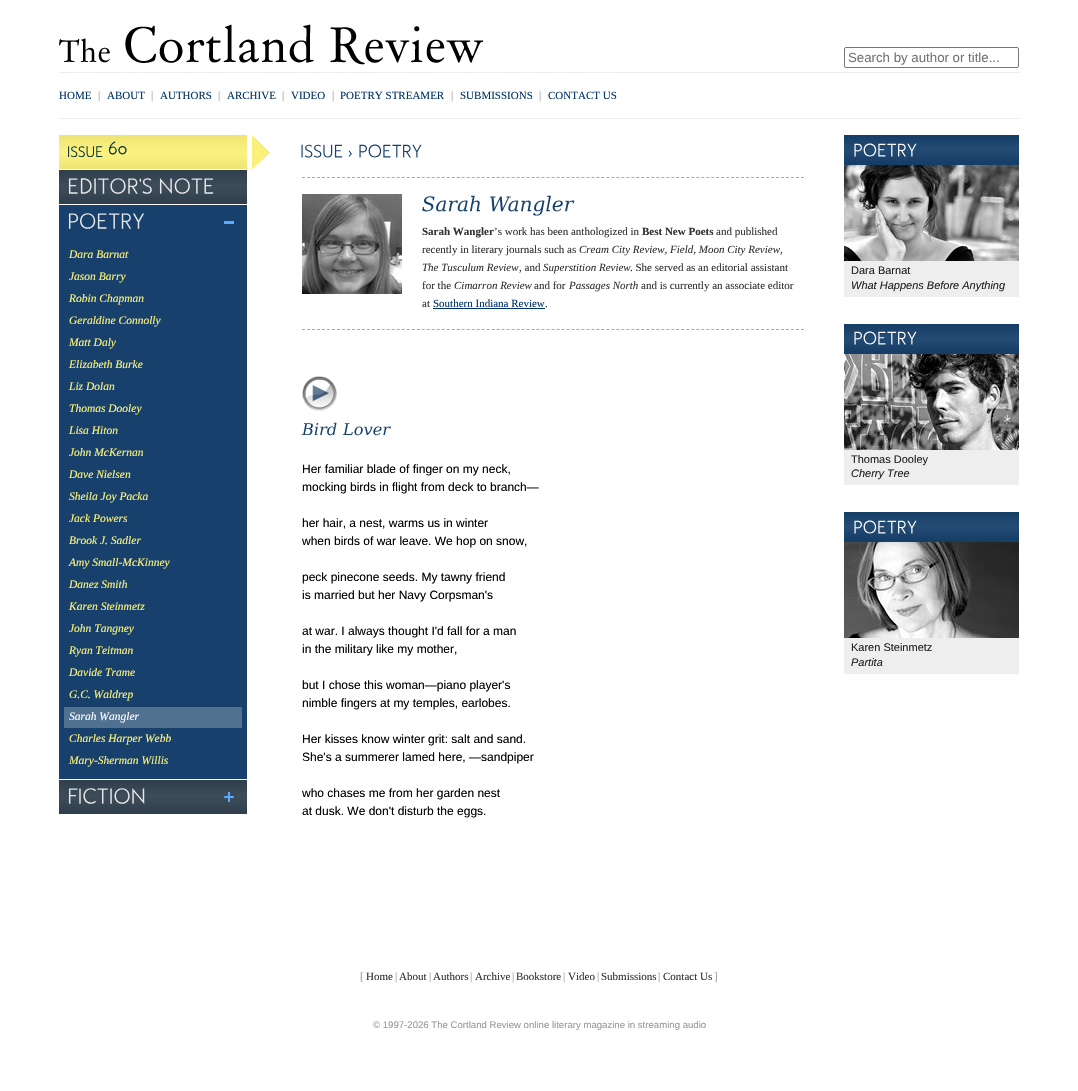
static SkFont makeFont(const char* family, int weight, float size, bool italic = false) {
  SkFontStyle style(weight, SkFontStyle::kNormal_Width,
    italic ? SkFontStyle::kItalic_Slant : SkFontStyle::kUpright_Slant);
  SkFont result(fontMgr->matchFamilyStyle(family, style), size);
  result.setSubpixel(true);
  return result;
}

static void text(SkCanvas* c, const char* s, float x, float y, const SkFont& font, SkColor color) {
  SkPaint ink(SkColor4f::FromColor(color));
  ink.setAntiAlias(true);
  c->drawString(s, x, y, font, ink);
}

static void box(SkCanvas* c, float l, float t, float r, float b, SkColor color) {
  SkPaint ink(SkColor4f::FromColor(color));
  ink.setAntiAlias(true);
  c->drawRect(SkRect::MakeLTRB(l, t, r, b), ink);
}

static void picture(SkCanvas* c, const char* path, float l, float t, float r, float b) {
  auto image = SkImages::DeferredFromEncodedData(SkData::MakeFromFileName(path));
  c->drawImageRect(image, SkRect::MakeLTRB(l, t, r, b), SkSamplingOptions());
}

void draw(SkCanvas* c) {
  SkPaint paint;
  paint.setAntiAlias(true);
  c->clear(0xffffffff);
  picture(c, "img_01.png", 59, 24, 484, 65);
  paint.setStyle(SkPaint::kStroke_Style);
  paint.setStrokeWidth(1);
  paint.setColor(0xff767676);
  c->drawRoundRect(SkRect::MakeLTRB(844.5f, 47.5f, 1018.5f, 67.5f), 1.5f, 1.5f, paint);
  SkFont face1 = makeFont("Liberation Sans", 400, 13.25f);
  text(c, "Search by author or title...", 848, 62, face1, 0xff757575);
  box(c, 59, 72, 1019, 73, 0xffebedef);
  box(c, 59, 118, 1019, 119, 0xffebedef);
  SkFont face2 = makeFont("Liberation Serif", 400, 11);
  text(c, "HOME", 59, 99, face2, 0xff003366);
  text(c, "|", 98, 99, face2, 0xff999999);
  text(c, "ABOUT", 107, 99, face2, 0xff003366);
  text(c, "|", 151, 99, face2, 0xff999999);
  text(c, "AUTHORS", 160, 99, face2, 0xff003366);
  text(c, "|", 218, 99, face2, 0xff999999);
  text(c, "ARCHIVE", 227, 99, face2, 0xff003366);
  text(c, "|", 282, 99, face2, 0xff999999);
  text(c, "VIDEO", 291, 99, face2, 0xff003366);
  text(c, "|", 332, 99, face2, 0xff999999);
  text(c, "POETRY STREAMER", 340, 99, face2, 0xff003366);
  text(c, "|", 451, 99, face2, 0xff999999);
  text(c, "SUBMISSIONS", 460, 99, face2, 0xff003366);
  text(c, "|", 539, 99, face2, 0xff999999);
  text(c, "CONTACT US", 548, 99, face2, 0xff003366);
  picture(c, "img_02.png", 252, 136, 270, 169);
  picture(c, "img_03.png", 59, 135, 247, 169);
  picture(c, "img_04.png", 68, 146, 103, 157);
  picture(c, "img_05.png", 108, 141, 127, 155);
  picture(c, "img_06.png", 59, 170, 247, 204);
  picture(c, "img_07.png", 68, 178, 152, 194);
  picture(c, "img_08.png", 159, 178, 214, 194);
  box(c, 59, 205, 247, 779, 0xff17416c);
  box(c, 224, 221, 234, 224, 0xff58acff);
  picture(c, "img_09.png", 68, 213, 144, 229);
  SkFont face3 = makeFont("Liberation Serif", 400, 11.5f, true);
  text(c, "Dara Barnat", 69, 258, face3, 0xfffbf17a);
  text(c, "Jason Barry", 69, 280, face3, 0xfffbf17a);
  text(c, "Robin Chapman", 69, 302, face3, 0xfffbf17a);
  text(c, "Geraldine Connolly", 69, 324, face3, 0xfffbf17a);
  text(c, "Matt Daly", 69, 346, face3, 0xfffbf17a);
  text(c, "Elizabeth Burke", 69, 368, face3, 0xfffbf17a);
  text(c, "Liz Dolan", 69, 390, face3, 0xfffbf17a);
  text(c, "Thomas Dooley", 69, 412, face3, 0xfffbf17a);
  text(c, "Lisa Hiton", 69, 434, face3, 0xfffbf17a);
  text(c, "John McKernan", 69, 456, face3, 0xfffbf17a);
  text(c, "Dave Nielsen", 69, 478, face3, 0xfffbf17a);
  text(c, "Sheila Joy Packa", 69, 500, face3, 0xfffbf17a);
  text(c, "Jack Powers", 69, 522, face3, 0xfffbf17a);
  text(c, "Brook J. Sadler", 69, 544, face3, 0xfffbf17a);
  text(c, "Amy Small-McKinney", 69, 566, face3, 0xfffbf17a);
  text(c, "Danez Smith", 69, 588, face3, 0xfffbf17a);
  text(c, "Karen Steinmetz", 69, 610, face3, 0xfffbf17a);
  text(c, "John Tangney", 69, 632, face3, 0xfffbf17a);
  text(c, "Ryan Teitman", 69, 654, face3, 0xfffbf17a);
  text(c, "Davide Trame", 69, 676, face3, 0xfffbf17a);
  text(c, "G.C. Waldrep", 69, 698, face3, 0xfffbf17a);
  box(c, 64, 707, 242, 728, 0xff517191);
  text(c, "Sarah Wangler", 69, 720, face3, 0xffffffff);
  text(c, "Charles Harper Webb", 69, 742, face3, 0xfffbf17a);
  text(c, "Mary-Sherman Willis", 69, 764, face3, 0xfffbf17a);
  picture(c, "img_06.png", 59, 780, 247, 814);
  picture(c, "img_10.png", 224, 792, 234, 802);
  picture(c, "img_11.png", 68, 788, 145, 804);
  picture(c, "img_12.png", 301, 144, 343, 158);
  picture(c, "img_13.png", 348, 150, 352, 157);
  picture(c, "img_14.png", 359, 144, 422, 158);
  paint.setColor(0xffaaaaaa);
  paint.setPathEffect(SkDashPathEffect::Make({{3, 1.99f}}, 0));
  c->drawPath(SkPathBuilder().moveTo(302, 177.5f).lineTo(804, 177.5f).detach(), paint);
  paint.setPathEffect(nullptr);
  paint.setPathEffect(SkDashPathEffect::Make({{3, 1.99f}}, 0));
  c->drawPath(SkPathBuilder().moveTo(302, 329.5f).lineTo(804, 329.5f).detach(), paint);
  paint.setPathEffect(nullptr);
  picture(c, "img_15.png", 302, 194, 402, 294);
  picture(c, "img_16.png", 422, 195, 480, 212);
  picture(c, "img_17.png", 490, 195, 575, 216);
  SkFont face4 = makeFont("Liberation Serif", 700, 11);
  text(c, "Sarah Wangler", 422, 235, face4, 0xff333333);
  text(c, "’s work has been anthologized in", 494, 235, face2, 0xff333333);
  text(c, "Best New Poets", 642, 235, face4, 0xff333333);
  text(c, "and published", 716, 235, face2, 0xff333333);
  text(c, "recently in literary journals such as", 422, 253, face2, 0xff333333);
  SkFont face5 = makeFont("Liberation Serif", 400, 11, true);
  text(c, "Cream City Review, Field, Moon City Review,", 579, 253, face5, 0xff333333);
  text(c, "The Tusculum Review", 422, 271, face5, 0xff333333);
  text(c, ", and", 519, 271, face2, 0xff333333);
  text(c, "Superstition Review", 543, 271, face5, 0xff333333);
  text(c, ". She served as an editorial assistant", 630, 271, face2, 0xff333333);
  text(c, "for the", 422, 289, face2, 0xff333333);
  text(c, "Cimarron Review", 454, 289, face5, 0xff333333);
  text(c, "and for", 534, 289, face2, 0xff333333);
  text(c, "Passages North", 569, 289, face5, 0xff333333);
  text(c, "and is currently an associate editor", 641, 289, face2, 0xff333333);
  text(c, "at", 422, 307, face2, 0xff333333);
  text(c, "Southern Indiana Review", 433, 307, face2, 0xff003366);
  box(c, 433, 308, 545, 309, 0xff003366);
  text(c, ".", 545, 307, face2, 0xff333333);
  picture(c, "img_18.png", 302, 376, 337, 411);
  picture(c, "img_19.png", 301, 422, 337, 436);
  picture(c, "img_20.png", 342, 423, 391, 436);
  SkFont face6 = makeFont("Liberation Sans", 400, 12);
  text(c, "Her familiar blade of finger on my neck,", 302, 473, face6, 0xff000000);
  text(c, "mocking birds in flight from deck to branch—", 302, 491, face6, 0xff000000);
  text(c, "her hair, a nest, warms us in winter", 302, 527, face6, 0xff000000);
  text(c, "when birds of war leave. We hop on snow,", 302, 545, face6, 0xff000000);
  text(c, "peck pinecone seeds. My tawny friend", 302, 581, face6, 0xff000000);
  text(c, "is married but her Navy Corpsman's", 302, 599, face6, 0xff000000);
  text(c, "at war. I always thought I'd fall for a man", 302, 635, face6, 0xff000000);
  text(c, "in the military like my mother,", 302, 653, face6, 0xff000000);
  text(c, "but I chose this woman—piano player's", 302, 689, face6, 0xff000000);
  text(c, "nimble fingers at my temples, earlobes.", 302, 707, face6, 0xff000000);
  text(c, "Her kisses know winter grit: salt and sand.", 302, 743, face6, 0xff000000);
  text(c, "She's a summerer lamed here, —sandpiper", 302, 761, face6, 0xff000000);
  text(c, "who chases me from her garden nest", 302, 797, face6, 0xff000000);
  text(c, "at dusk. We don't disturb the eggs.", 302, 815, face6, 0xff000000);
  box(c, 844, 261, 1019, 297, 0xffeeeeee);
  picture(c, "img_21.png", 844, 135, 1019, 165);
  picture(c, "img_22.png", 854, 143, 917, 157);
  picture(c, "img_23.png", 844, 165, 1019, 261);
  SkFont face7 = makeFont("Liberation Sans", 400, 11);
  text(c, "Dara Barnat", 851, 274, face7, 0xff222222);
  SkFont face8 = makeFont("Liberation Sans", 400, 11, true);
  text(c, "What Happens Before Anything", 851, 289, face8, 0xff222222);
  box(c, 844, 450, 1019, 485, 0xffeeeeee);
  picture(c, "img_21.png", 844, 324, 1019, 354);
  picture(c, "img_24.png", 854, 331, 917, 345);
  picture(c, "img_25.png", 844, 354, 1019, 450);
  text(c, "Thomas Dooley", 851, 463, face7, 0xff222222);
  text(c, "Cherry Tree", 851, 477, face8, 0xff222222);
  box(c, 844, 638, 1019, 674, 0xffeeeeee);
  picture(c, "img_21.png", 844, 512, 1019, 542);
  picture(c, "img_22.png", 854, 520, 917, 534);
  picture(c, "img_26.png", 844, 542, 1019, 638);
  text(c, "Karen Steinmetz", 851, 651, face7, 0xff222222);
  text(c, "Partita", 851, 666, face8, 0xff222222);
  text(c, "[", 360, 980, face2, 0xff999999);
  text(c, "Home", 366, 980, face2, 0xff333333);
  text(c, "|", 395, 980, face2, 0xff999999);
  text(c, "About", 399, 980, face2, 0xff333333);
  text(c, "|", 429, 980, face2, 0xff999999);
  text(c, "Authors", 433, 980, face2, 0xff333333);
  text(c, "|", 470, 980, face2, 0xff999999);
  text(c, "Archive", 475, 980, face2, 0xff333333);
  text(c, "|", 512, 980, face2, 0xff999999);
  text(c, "Bookstore", 516, 980, face2, 0xff333333);
  text(c, "|", 563, 980, face2, 0xff999999);
  text(c, "Video", 568, 980, face2, 0xff333333);
  text(c, "|", 597, 980, face2, 0xff999999);
  text(c, "Submissions", 601, 980, face2, 0xff333333);
  text(c, "|", 658, 980, face2, 0xff999999);
  text(c, "Contact Us", 663, 980, face2, 0xff333333);
  text(c, "]", 714, 980, face2, 0xff999999);
  SkFont face9 = makeFont("Liberation Sans", 400, 9.6f);
  text(c, "© 1997-2026 The Cortland Review online literary magazine in streaming audio", 373, 1028, face9, 0xff999999);
}
